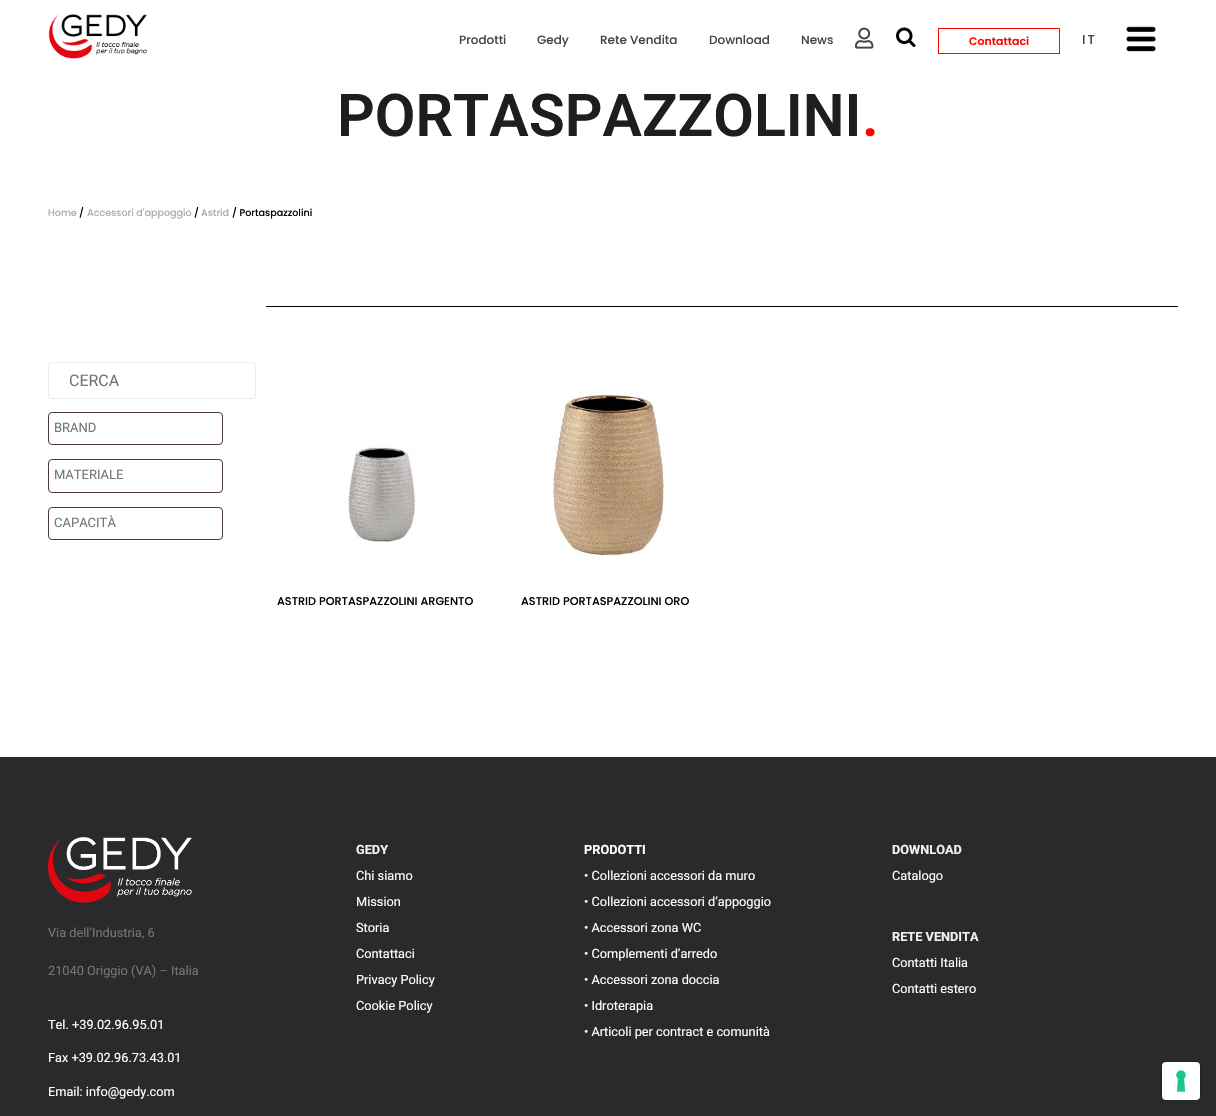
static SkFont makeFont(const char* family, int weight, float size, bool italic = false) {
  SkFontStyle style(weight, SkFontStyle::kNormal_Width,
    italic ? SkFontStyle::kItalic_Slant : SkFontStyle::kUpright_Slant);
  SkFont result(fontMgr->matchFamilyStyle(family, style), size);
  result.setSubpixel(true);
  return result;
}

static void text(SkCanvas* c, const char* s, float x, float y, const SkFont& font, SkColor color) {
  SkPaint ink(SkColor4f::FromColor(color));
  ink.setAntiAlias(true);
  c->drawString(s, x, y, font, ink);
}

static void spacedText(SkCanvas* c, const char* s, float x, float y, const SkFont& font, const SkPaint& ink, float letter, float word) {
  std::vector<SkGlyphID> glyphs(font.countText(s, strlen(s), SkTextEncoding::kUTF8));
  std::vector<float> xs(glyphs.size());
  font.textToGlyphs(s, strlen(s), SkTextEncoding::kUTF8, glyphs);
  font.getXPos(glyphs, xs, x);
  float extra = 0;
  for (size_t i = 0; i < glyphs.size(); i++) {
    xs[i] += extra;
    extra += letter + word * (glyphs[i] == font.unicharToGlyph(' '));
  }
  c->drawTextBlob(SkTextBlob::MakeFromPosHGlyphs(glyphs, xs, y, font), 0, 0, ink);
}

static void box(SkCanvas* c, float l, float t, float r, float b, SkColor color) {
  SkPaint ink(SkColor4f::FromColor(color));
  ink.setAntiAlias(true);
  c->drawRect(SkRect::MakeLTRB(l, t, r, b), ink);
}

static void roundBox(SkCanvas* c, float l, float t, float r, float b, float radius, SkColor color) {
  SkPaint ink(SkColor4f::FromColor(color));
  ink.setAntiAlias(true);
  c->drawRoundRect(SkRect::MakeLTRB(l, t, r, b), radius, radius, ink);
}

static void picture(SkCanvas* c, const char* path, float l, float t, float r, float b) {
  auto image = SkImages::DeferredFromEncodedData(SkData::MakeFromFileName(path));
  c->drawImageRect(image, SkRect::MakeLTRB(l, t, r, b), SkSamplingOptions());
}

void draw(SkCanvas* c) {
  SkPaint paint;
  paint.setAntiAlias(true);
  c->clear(0xffffffff);
  picture(c, "img_01.png", 48, 14, 147, 59);
  SkFont face1 = makeFont("Poppins", 500, 12);
  text(c, "Prodotti", 459, 44, face1, 0xff444444);
  text(c, "Gedy", 537, 44, face1, 0xff444444);
  text(c, "Rete Vendita", 600, 44, face1, 0xff444444);
  text(c, "Download", 709, 44, face1, 0xff444444);
  text(c, "News", 801, 44, face1, 0xff444444);
  picture(c, "img_02.png", 855, 27, 874, 49);
  picture(c, "img_03.png", 896, 27, 916, 47);
  paint.setStyle(SkPaint::kStroke_Style);
  paint.setStrokeWidth(1);
  paint.setColor(0xffff0800);
  c->drawRect(SkRect::MakeLTRB(938.5f, 28.5f, 1059.5f, 53.5f), paint);
  SkFont face2 = makeFont("Poppins", 600, 11);
  text(c, "Contattaci", 969, 45, face2, 0xffff0800);
  SkFont face3 = makeFont("Poppins", 500, 13);
  paint.setStyle(SkPaint::kFill_Style);
  paint.setColor(0xff444444);
  spacedText(c, "IT", 1082, 44, face3, paint, 2, 0);
  picture(c, "img_04.png", 1126, 26, 1156, 52);
  SkFont face4 = makeFont("Roboto", 600, 59);
  text(c, "PORTASPAZZOLINI", 337, 136, face4, 0xff1e1e1e);
  text(c, ".", 862, 136, face4, 0xffff0000);
  SkFont face5 = makeFont("Poppins", 500, 9.6f);
  text(c, "Home", 48, 216, face5, 0xffadadad);
  text(c, "/", 79, 216, face5, 0xff000000);
  text(c, "Accessori d'appoggio", 87, 216, face5, 0xffadadad);
  text(c, "/", 194, 216, face5, 0xff000000);
  text(c, "Astrid", 201, 216, face5, 0xffadadad);
  text(c, "/ Portaspazzolini", 232, 216, face5, 0xff000000);
  box(c, 266, 306, 1178, 307, 0xff000000);
  paint.setStyle(SkPaint::kStroke_Style);
  paint.setColor(0xffeeeeee);
  c->drawRoundRect(SkRect::MakeLTRB(48.5f, 362.5f, 255.5f, 398.5f), 2.5f, 2.5f, paint);
  SkFont face6 = makeFont("Roboto", 400, 16);
  text(c, "CERCA", 69, 386, face6, 0xff757575);
  paint.setColor(0xff4d3939);
  c->drawRoundRect(SkRect::MakeLTRB(48.5f, 412.5f, 222.5f, 444.5f), 3.5f, 3.5f, paint);
  SkFont face7 = makeFont("Roboto", 400, 13);
  text(c, "BRAND", 54, 432, face7, 0xff757575);
  c->drawRoundRect(SkRect::MakeLTRB(48.5f, 459.5f, 222.5f, 492.5f), 3.5f, 3.5f, paint);
  text(c, "MATERIALE", 54, 479, face7, 0xff757575);
  c->drawRoundRect(SkRect::MakeLTRB(48.5f, 507.5f, 222.5f, 539.5f), 3.5f, 3.5f, paint);
  text(c, "CAPACITÀ", 54, 527, face7, 0xff757575);
  picture(c, "img_05.png", 348, 444, 416, 543);
  SkFont face8 = makeFont("Poppins", 500, 11.25f);
  text(c, "ASTRID PORTASPAZZOLINI ARGENTO", 277, 605, face8, 0xff000000);
  picture(c, "img_06.png", 550, 392, 664, 556);
  text(c, "ASTRID PORTASPAZZOLINI ORO", 521, 605, face8, 0xff000000);
  box(c, 0, 757, 1216, 1116, 0xff2a2a2b);
  picture(c, "img_07.png", 48, 837, 192, 903);
  SkFont face9 = makeFont("Roboto", 400, 12.75f);
  text(c, "Via dell’Industria, 6", 48, 937, face9, 0xff757575);
  text(c, "21040 Origgio (VA) – Italia", 48, 975, face9, 0xff757575);
  text(c, "Tel. +39.02.96.95.01", 48, 1029, face9, 0xffffffff);
  text(c, "Fax +39.02.96.73.43.01", 48, 1062, face9, 0xffffffff);
  text(c, "Email: info@gedy.com", 48, 1096, face9, 0xffffffff);
  SkFont face10 = makeFont("Roboto", 700, 12.75f);
  text(c, "GEDY", 356, 854, face10, 0xfff1f1f1);
  text(c, "Chi siamo", 356, 880, face9, 0xffffffff);
  text(c, "Mission", 356, 906, face9, 0xffffffff);
  text(c, "Storia", 356, 932, face9, 0xffffffff);
  text(c, "Contattaci", 356, 958, face9, 0xffffffff);
  text(c, "Privacy Policy", 356, 984, face9, 0xffffffff);
  text(c, "Cookie Policy", 356, 1010, face9, 0xffffffff);
  text(c, "PRODOTTI", 584, 854, face10, 0xffffffff);
  text(c, "• Collezioni accessori da muro", 584, 880, face9, 0xffffffff);
  text(c, "• Collezioni accessori d’appoggio", 584, 906, face9, 0xffffffff);
  text(c, "• Accessori zona WC", 584, 932, face9, 0xffffffff);
  text(c, "• Complementi d’arredo", 584, 958, face9, 0xffffffff);
  text(c, "• Accessori zona doccia", 584, 984, face9, 0xffffffff);
  text(c, "• Idroterapia", 584, 1010, face9, 0xffffffff);
  text(c, "• Articoli per contract e comunità", 584, 1036, face9, 0xffffffff);
  text(c, "DOWNLOAD", 892, 854, face10, 0xfff1f1f1);
  text(c, "Catalogo", 892, 880, face9, 0xffffffff);
  text(c, "RETE VENDITA", 892, 941, face10, 0xfff1f1f1);
  text(c, "Contatti Italia", 892, 967, face9, 0xffffffff);
  text(c, "Contatti estero", 892, 993, face9, 0xffffffff);
  paint.setColor(0xff242425);
  c->drawRoundRect(SkRect::MakeLTRB(1161.5f, 1061.5f, 1200.5f, 1100.5f), 4.5f, 4.5f, paint);
  roundBox(c, 1162, 1062, 1200, 1100, 4, 0xffffffff);
  picture(c, "img_08.png", 1176, 1070, 1186, 1092);
}
